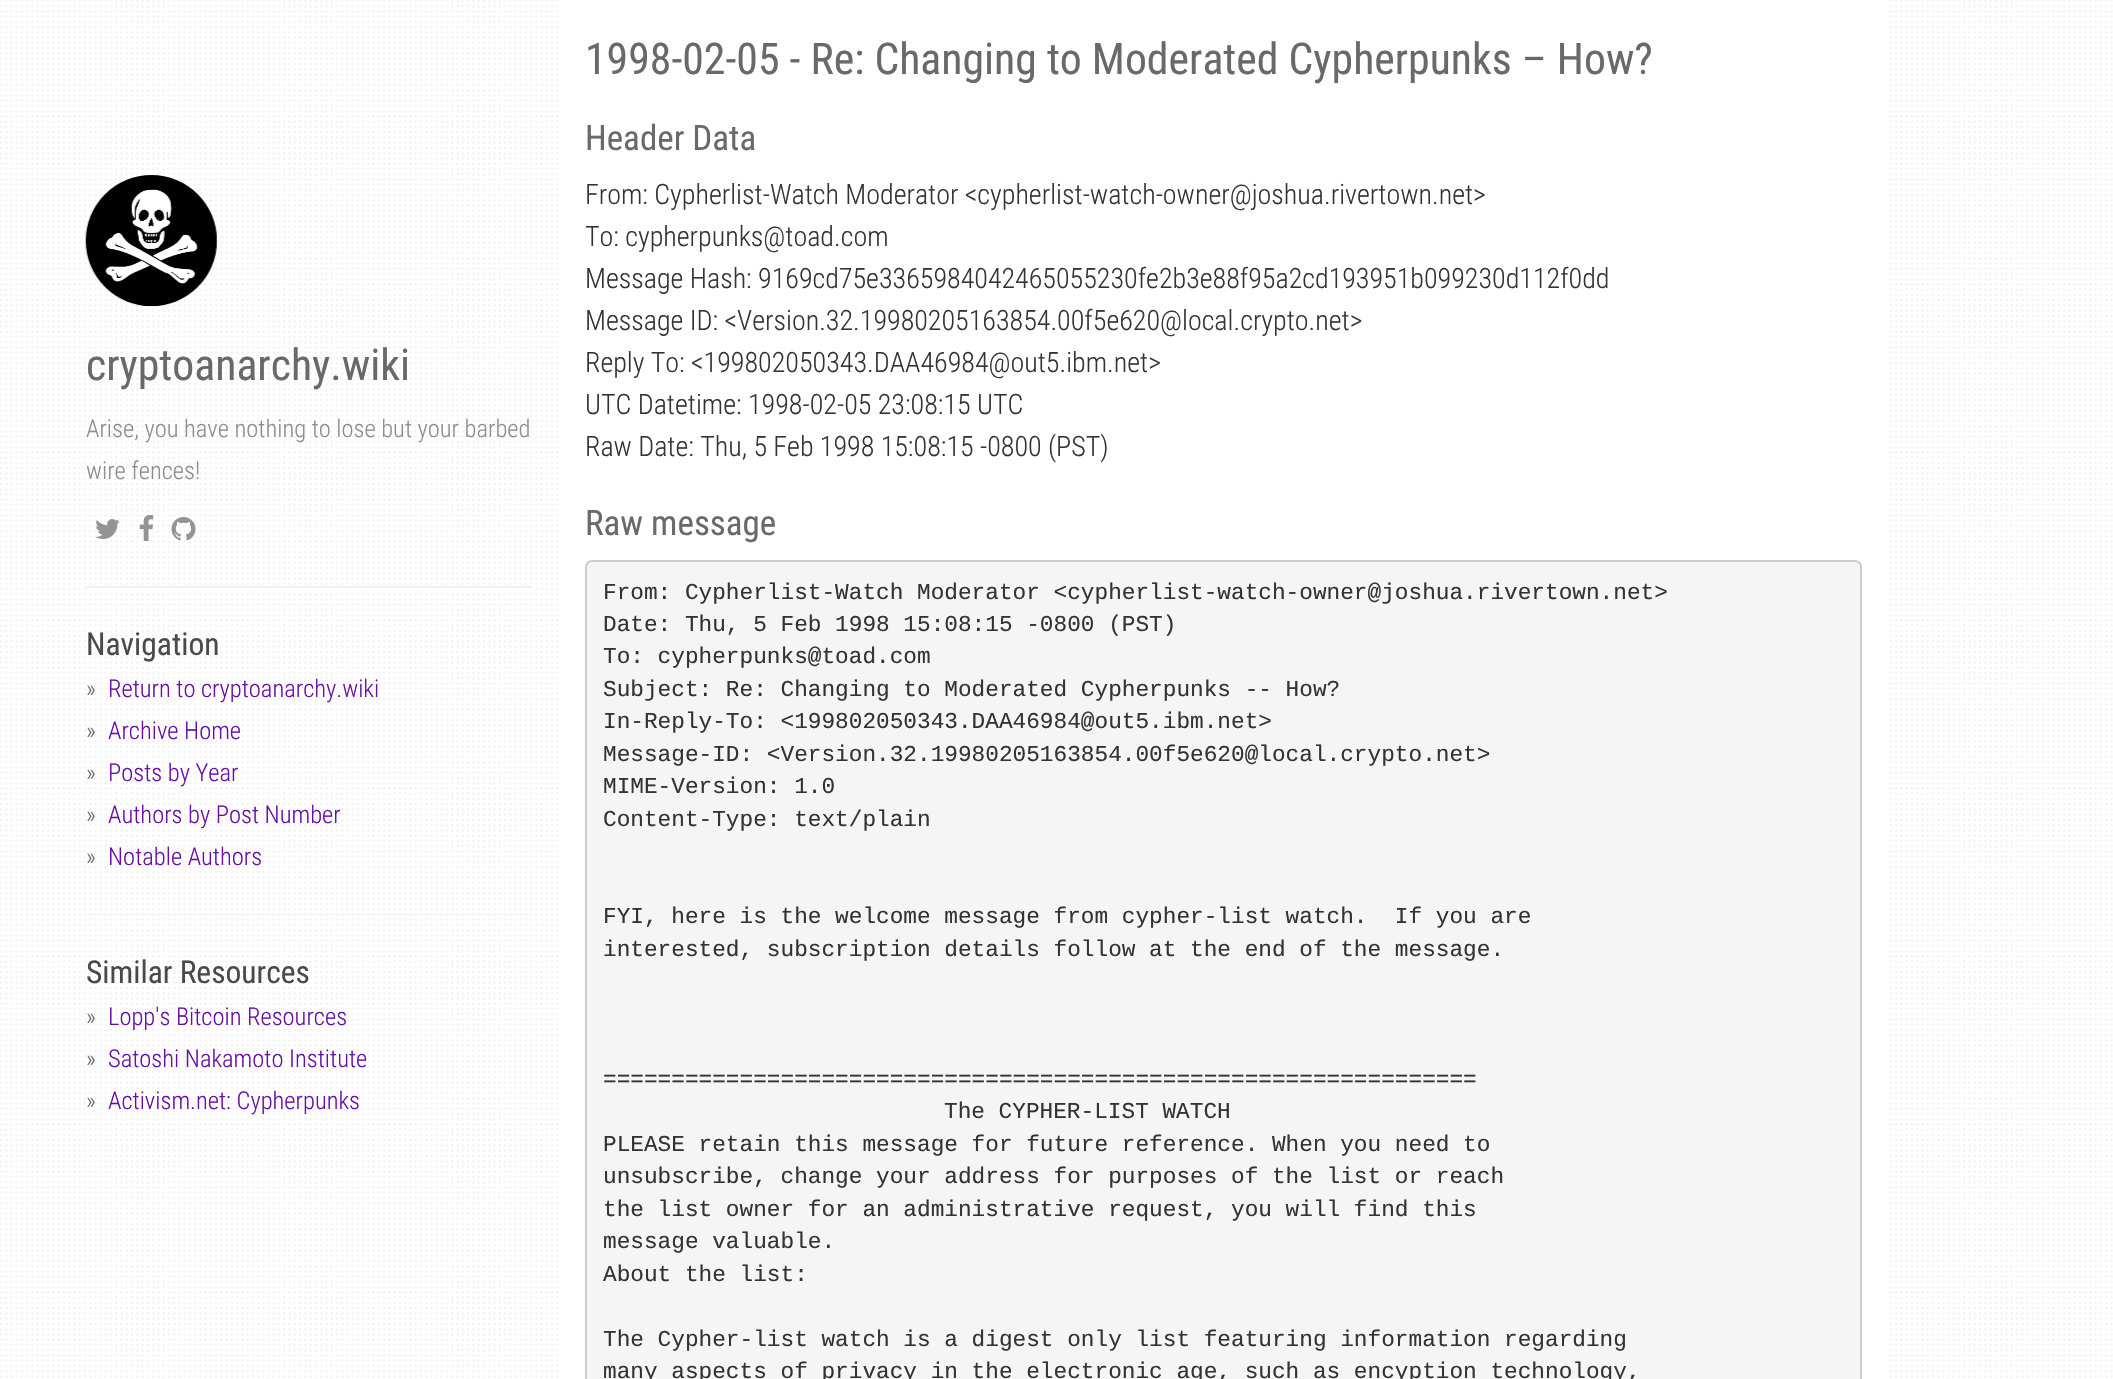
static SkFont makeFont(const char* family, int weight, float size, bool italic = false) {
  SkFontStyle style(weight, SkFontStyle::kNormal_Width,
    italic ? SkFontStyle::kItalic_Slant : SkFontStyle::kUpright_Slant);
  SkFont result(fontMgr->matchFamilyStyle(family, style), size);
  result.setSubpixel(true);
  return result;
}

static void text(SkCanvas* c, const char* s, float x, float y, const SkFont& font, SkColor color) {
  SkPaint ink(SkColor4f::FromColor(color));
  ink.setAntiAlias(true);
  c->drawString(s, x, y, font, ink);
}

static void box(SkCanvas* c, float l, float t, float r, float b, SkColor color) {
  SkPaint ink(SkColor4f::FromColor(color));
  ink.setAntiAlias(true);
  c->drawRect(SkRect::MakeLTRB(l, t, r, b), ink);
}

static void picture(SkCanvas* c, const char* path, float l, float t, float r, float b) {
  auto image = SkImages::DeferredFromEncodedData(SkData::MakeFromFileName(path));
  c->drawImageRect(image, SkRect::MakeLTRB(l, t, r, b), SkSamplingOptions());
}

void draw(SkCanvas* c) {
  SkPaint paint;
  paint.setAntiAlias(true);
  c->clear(0xffffffff);
  picture(c, "img_01.png", 0, 0, 2113, 1378);
  picture(c, "img_02.png", 85, 175, 218, 307);
  SkFont face1 = makeFont("Roboto Condensed", 400, 43.75f);
  text(c, "cryptoanarchy.wiki", 86, 380, face1, 0xff696969);
  SkFont face2 = makeFont("Roboto Condensed", 300, 24.5f);
  text(c, "Arise, you have nothing to lose but your barbed", 86, 437, face2, 0xff8c8c8c);
  text(c, "wire fences!", 86, 479, face2, 0xff8c8c8c);
  picture(c, "img_03.png", 95, 519, 120, 539);
  picture(c, "img_04.png", 139, 515, 154, 541);
  picture(c, "img_05.png", 171, 517, 196, 541);
  box(c, 86, 586, 532, 588, 0xfff7f1f1);
  box(c, 86, 588, 532, 590, 0xffffffff);
  SkFont face3 = makeFont("Roboto Condensed", 400, 31.5f);
  text(c, "Navigation", 86, 655, face3, 0xff4a4a4a);
  text(c, "»", 86, 697, face2, 0xff696969);
  text(c, "Return to cryptoanarchy.wiki", 108, 697, face2, 0xff680ea4);
  text(c, "»", 86, 739, face2, 0xff696969);
  text(c, "Archive Home", 108, 739, face2, 0xff680ea4);
  text(c, "»", 86, 781, face2, 0xff696969);
  text(c, "Posts by Year", 108, 781, face2, 0xff680ea4);
  text(c, "»", 86, 823, face2, 0xff696969);
  text(c, "Authors by Post Number", 108, 823, face2, 0xff680ea4);
  text(c, "»", 86, 865, face2, 0xff696969);
  text(c, "Notable Authors", 108, 865, face2, 0xff680ea4);
  box(c, 86, 914, 532, 915, 0xfff7f1f1);
  box(c, 86, 915, 532, 916, 0xffffffff);
  text(c, "Similar Resources", 86, 983, face3, 0xff4a4a4a);
  text(c, "»", 86, 1025, face2, 0xff696969);
  text(c, "Lopp's Bitcoin Resources", 108, 1025, face2, 0xff680ea4);
  text(c, "»", 86, 1067, face2, 0xff696969);
  text(c, "Satoshi Nakamoto Institute", 108, 1067, face2, 0xff680ea4);
  text(c, "»", 86, 1109, face2, 0xff696969);
  text(c, "Activism.net: Cypherpunks", 108, 1109, face2, 0xff680ea4);
  box(c, 558, 0, 1887, 1378, 0xffffffff);
  text(c, "1998-02-05 - Re: Changing to Moderated Cypherpunks – How?", 585, 74, face1, 0xff696969);
  SkFont face4 = makeFont("Roboto Condensed", 400, 35);
  text(c, "Header Data", 585, 150, face4, 0xff696969);
  SkFont face5 = makeFont("Roboto Condensed", 300, 28);
  text(c, "From: Cypherlist-Watch Moderator <cypherlist-watch-owner@joshua.rivertown.net>", 585, 204, face5, 0xff333333);
  text(c, "To: cypherpunks@toad.com", 585, 246, face5, 0xff333333);
  text(c, "Message Hash: 9169cd75e3365984042465055230fe2b3e88f95a2cd193951b099230d112f0dd", 585, 288, face5, 0xff333333);
  text(c, "Message ID: <Version.32.19980205163854.00f5e620@local.crypto.net>", 585, 330, face5, 0xff333333);
  text(c, "Reply To: <199802050343.DAA46984@out5.ibm.net>", 585, 372, face5, 0xff333333);
  text(c, "UTC Datetime: 1998-02-05 23:08:15 UTC", 585, 414, face5, 0xff333333);
  text(c, "Raw Date: Thu, 5 Feb 1998 15:08:15 -0800 (PST)", 585, 456, face5, 0xff333333);
  text(c, "Raw message", 585, 535, face4, 0xff696969);
  paint.setColor(0xfff5f5f5);
  c->drawRoundRect(SkRect::MakeLTRB(586, 561, 1861, 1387), 6, 6, paint);
  paint.setStyle(SkPaint::kStroke_Style);
  paint.setStrokeWidth(2);
  paint.setColor(0xffcccccc);
  c->drawRoundRect(SkRect::MakeLTRB(586, 561, 1861, 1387), 6, 6, paint);
  SkFont face6 = makeFont("Liberation Mono", 400, 22.75f);
  text(c, "From: Cypherlist-Watch Moderator <cypherlist-watch-owner@joshua.rivertown.net>", 603, 599, face6, 0xff333333);
  text(c, "Date: Thu, 5 Feb 1998 15:08:15 -0800 (PST)", 603, 631, face6, 0xff333333);
  text(c, "To: cypherpunks@toad.com", 603, 663, face6, 0xff333333);
  text(c, "Subject: Re: Changing to Moderated Cypherpunks -- How?", 603, 696, face6, 0xff333333);
  text(c, "In-Reply-To: <199802050343.DAA46984@out5.ibm.net>", 603, 728, face6, 0xff333333);
  text(c, "Message-ID: <Version.32.19980205163854.00f5e620@local.crypto.net>", 603, 761, face6, 0xff333333);
  text(c, "MIME-Version: 1.0", 603, 793, face6, 0xff333333);
  text(c, "Content-Type: text/plain", 603, 826, face6, 0xff333333);
  text(c, "FYI, here is the welcome message from cypher-list watch.  If you are", 603, 923, face6, 0xff333333);
  text(c, "interested, subscription details follow at the end of the message.", 603, 956, face6, 0xff333333);
  text(c, "================================================================", 603, 1086, face6, 0xff333333);
  text(c, "The CYPHER-LIST WATCH", 944, 1118, face6, 0xff333333);
  text(c, "PLEASE retain this message for future reference. When you need to", 603, 1151, face6, 0xff333333);
  text(c, "unsubscribe, change your address for purposes of the list or reach", 603, 1183, face6, 0xff333333);
  text(c, "the list owner for an administrative request, you will find this", 603, 1216, face6, 0xff333333);
  text(c, "message valuable.", 603, 1248, face6, 0xff333333);
  text(c, "About the list:", 603, 1281, face6, 0xff333333);
  text(c, "The Cypher-list watch is a digest only list featuring information regarding", 603, 1346, face6, 0xff333333);
  text(c, "many aspects of privacy in the electronic age, such as encyption technology,", 603, 1378, face6, 0xff333333);
}
